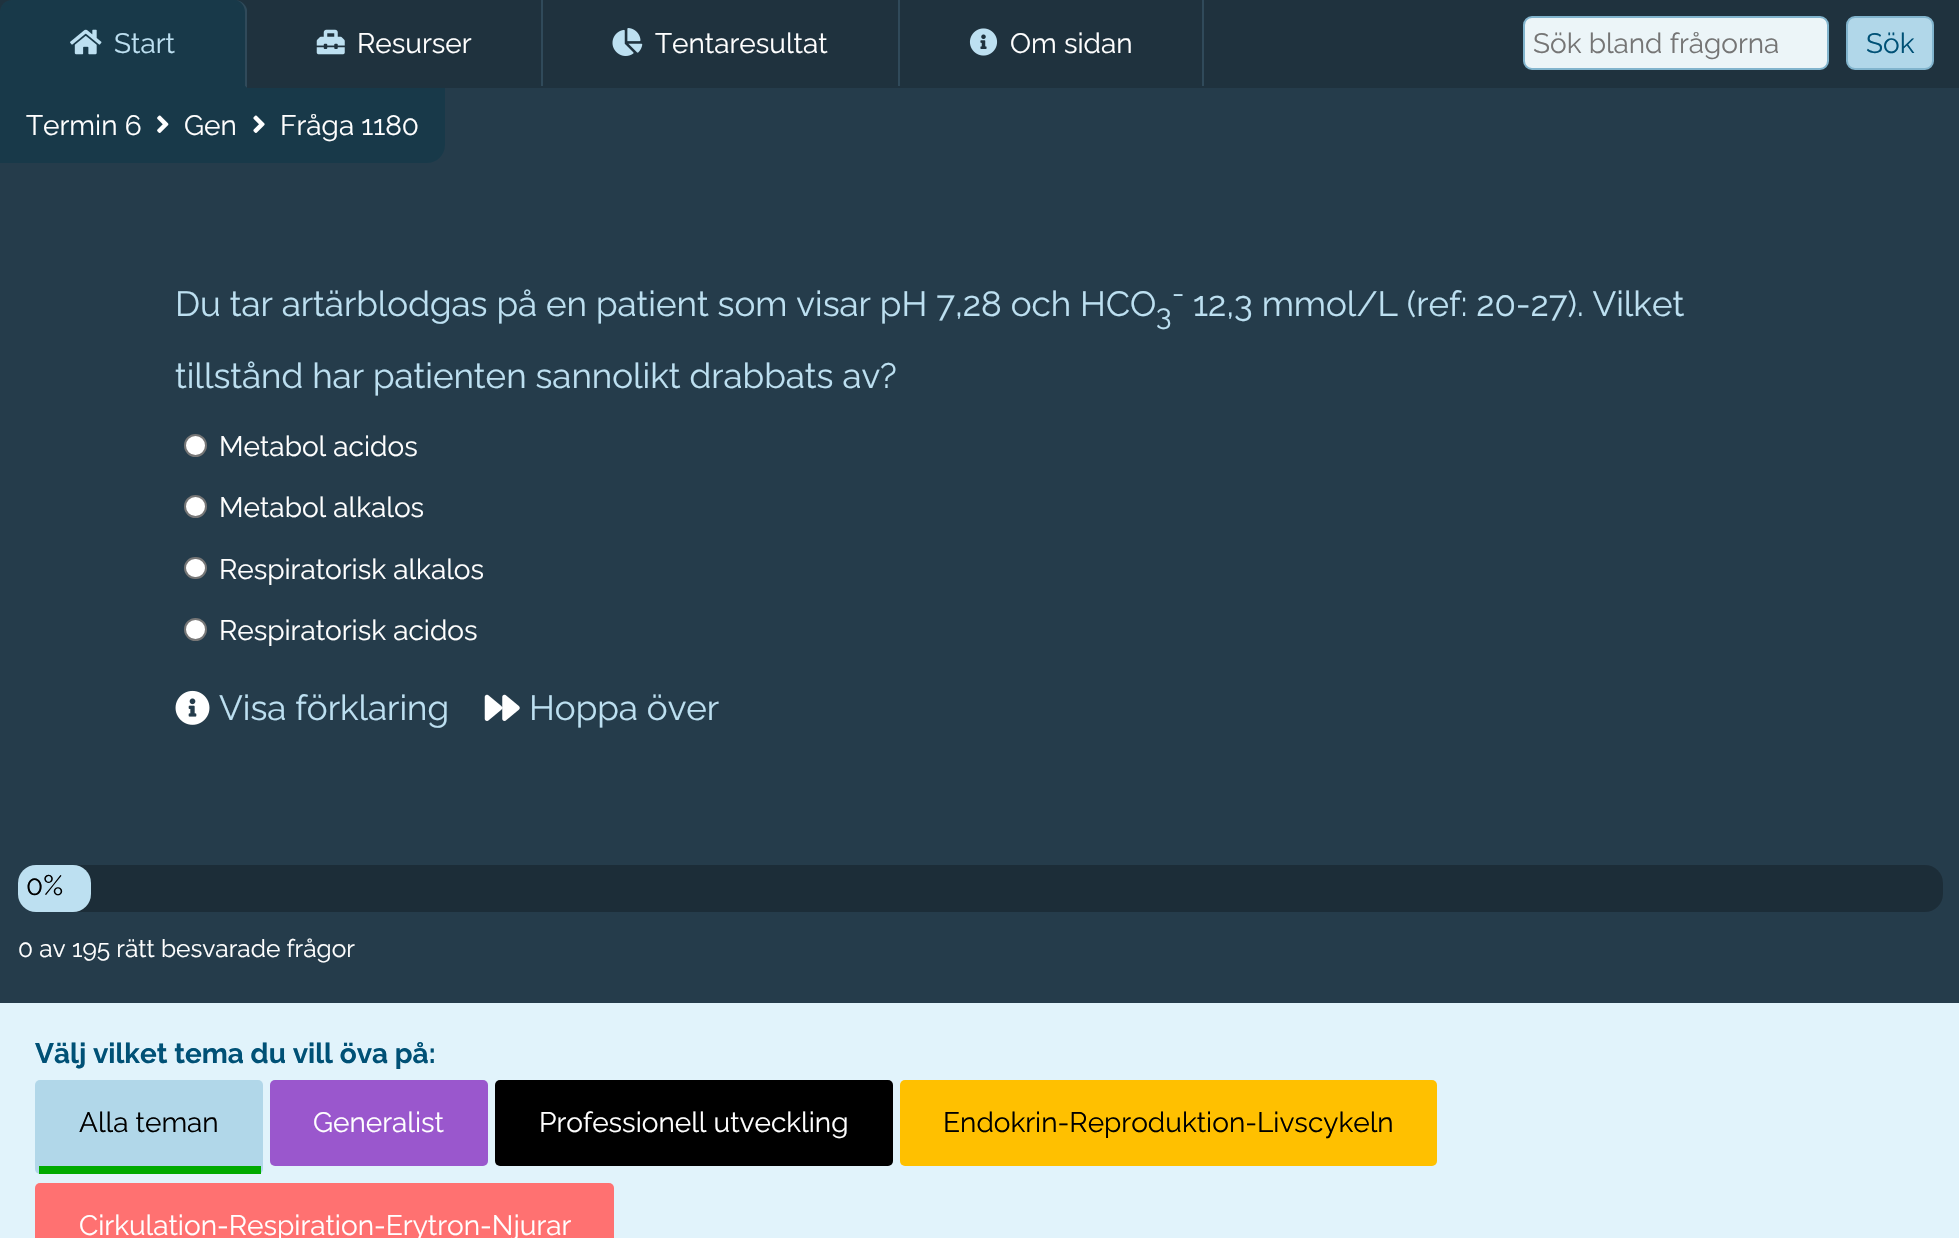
static SkFont makeFont(const char* family, int weight, float size, bool italic = false) {
  SkFontStyle style(weight, SkFontStyle::kNormal_Width,
    italic ? SkFontStyle::kItalic_Slant : SkFontStyle::kUpright_Slant);
  SkFont result(fontMgr->matchFamilyStyle(family, style), size);
  result.setSubpixel(true);
  return result;
}

static void text(SkCanvas* c, const char* s, float x, float y, const SkFont& font, SkColor color) {
  SkPaint ink(SkColor4f::FromColor(color));
  ink.setAntiAlias(true);
  c->drawString(s, x, y, font, ink);
}

static void box(SkCanvas* c, float l, float t, float r, float b, SkColor color) {
  SkPaint ink(SkColor4f::FromColor(color));
  ink.setAntiAlias(true);
  c->drawRect(SkRect::MakeLTRB(l, t, r, b), ink);
}

static void roundBox(SkCanvas* c, float l, float t, float r, float b, float radius, SkColor color) {
  SkPaint ink(SkColor4f::FromColor(color));
  ink.setAntiAlias(true);
  c->drawRoundRect(SkRect::MakeLTRB(l, t, r, b), radius, radius, ink);
}

static void picture(SkCanvas* c, const char* path, float l, float t, float r, float b) {
  auto image = SkImages::DeferredFromEncodedData(SkData::MakeFromFileName(path));
  c->drawImageRect(image, SkRect::MakeLTRB(l, t, r, b), SkSamplingOptions());
}

void draw(SkCanvas* c) {
  SkPaint paint;
  paint.setAntiAlias(true);
  c->clear(0xff253c4b);
  box(c, 0, 0, 1959, 88, 0xff1f323e);
  paint.setColor(0xff183949);
  c->drawPath(SkPathBuilder().moveTo(12, 0).lineTo(235, 0).cubicTo(241.5f, 0, 247, 5.5f, 247, 12).lineTo(247, 88).lineTo(0, 88).lineTo(0, 12).cubicTo(0, 5.5f, 5.5f, 0, 12, 0).close().detach(), paint);
  paint.setColor(0xff304a5a);
  c->drawPath(SkPathBuilder().moveTo(247, 10).cubicTo(246, 4, 240, 0, 234, 0).cubicTo(240, 0, 245, 5, 245, 12).lineTo(245, 86).lineTo(247, 88).close().detach(), paint);
  paint.setColor(0xff183949);
  c->drawPath(SkPathBuilder().moveTo(247, 88).lineTo(0, 88).lineTo(0, 86).lineTo(245, 86).close().detach(), paint);
  picture(c, "img_01.png", 70, 29, 102, 55);
  SkFont face1 = makeFont("Raleway", 400, 28);
  text(c, "Start", 114, 53, face1, 0xffbde0f1);
  box(c, 541, 0, 543, 88, 0xff304a5a);
  box(c, 541, 86, 543, 88, 0xff1f323e);
  picture(c, "img_02.png", 316, 29, 345, 55);
  text(c, "Resurser", 357, 53, face1, 0xffffffff);
  box(c, 898, 0, 900, 88, 0xff304a5a);
  box(c, 898, 86, 900, 88, 0xff1f323e);
  picture(c, "img_03.png", 612, 28, 643, 56);
  text(c, "Tentaresultat", 655, 53, face1, 0xffffffff);
  box(c, 1202, 0, 1204, 88, 0xff304a5a);
  box(c, 1202, 86, 1204, 88, 0xff1f323e);
  picture(c, "img_04.png", 969, 28, 998, 56);
  text(c, "Om sidan", 1010, 53, face1, 0xffffffff);
  paint.setColor(0xffecf5f8);
  c->drawRoundRect(SkRect::MakeLTRB(1524, 17, 1828, 69), 8, 8, paint);
  paint.setStyle(SkPaint::kStroke_Style);
  paint.setStrokeWidth(2);
  paint.setColor(0xff81b4cd);
  c->drawRoundRect(SkRect::MakeLTRB(1524, 17, 1828, 69), 8, 8, paint);
  text(c, "Sök bland frågorna", 1533, 53, face1, 0xff757575);
  paint.setStyle(SkPaint::kFill_Style);
  paint.setColor(0xffb1d7e9);
  c->drawRoundRect(SkRect::MakeLTRB(1847, 17, 1933, 69), 8, 8, paint);
  paint.setStyle(SkPaint::kStroke_Style);
  paint.setColor(0xff81b4cd);
  c->drawRoundRect(SkRect::MakeLTRB(1847, 17, 1933, 69), 8, 8, paint);
  text(c, "Sök", 1866, 53, face1, 0xff005176);
  paint.setStyle(SkPaint::kFill_Style);
  paint.setColor(0xff183949);
  c->drawPath(SkPathBuilder().moveTo(0, 88).lineTo(445, 88).lineTo(445, 145).cubicTo(445, 155, 437, 163, 427, 163).lineTo(0, 163).close().detach(), paint);
  text(c, "Termin 6", 26, 135, face1, 0xffffffff);
  picture(c, "img_05.png", 157, 115, 169, 133);
  text(c, "Gen", 184, 135, face1, 0xffffffff);
  picture(c, "img_06.png", 253, 115, 265, 133);
  text(c, "Fråga 1180", 280, 135, face1, 0xffffffff);
  SkFont face2 = makeFont("Raleway", 400, 35);
  text(c, "Du tar artärblodgas på en patient som visar pH 7,28 och HCO", 175, 316, face2, 0xffbde0f1);
  SkFont face3 = makeFont("Raleway", 400, 29);
  text(c, "-", 1172, 303, face3, 0xffbde0f1);
  text(c, "12,3 mmol/L (ref: 20-27). Vilket", 1193, 316, face2, 0xffbde0f1);
  text(c, "3", 1156, 325, face3, 0xffbde0f1);
  text(c, "tillstånd har patienten sannolikt drabbats av?", 175, 388, face2, 0xffbde0f1);
  paint.setColor(0xffffffff);
  c->drawCircle(195.5f, 445.5f, 10.5f, paint);
  paint.setStyle(SkPaint::kStroke_Style);
  paint.setColor(0xff767676);
  c->drawCircle(195.5f, 445.5f, 10.5f, paint);
  text(c, "Metabol acidos", 219, 456, face1, 0xffffffff);
  paint.setStyle(SkPaint::kFill_Style);
  paint.setColor(0xffffffff);
  c->drawCircle(195.5f, 506.5f, 10.5f, paint);
  paint.setStyle(SkPaint::kStroke_Style);
  paint.setColor(0xff767676);
  c->drawCircle(195.5f, 506.5f, 10.5f, paint);
  text(c, "Metabol alkalos", 219, 517, face1, 0xffffffff);
  paint.setStyle(SkPaint::kFill_Style);
  paint.setColor(0xffffffff);
  c->drawRoundRect(SkRect::MakeLTRB(185, 558, 206, 578), 10, 10, paint);
  paint.setStyle(SkPaint::kStroke_Style);
  paint.setColor(0xff767676);
  c->drawRoundRect(SkRect::MakeLTRB(185, 558, 206, 578), 10, 10, paint);
  text(c, "Respiratorisk alkalos", 219, 579, face1, 0xffffffff);
  paint.setStyle(SkPaint::kFill_Style);
  paint.setColor(0xffffffff);
  c->drawCircle(195.5f, 629.5f, 10.5f, paint);
  paint.setStyle(SkPaint::kStroke_Style);
  paint.setColor(0xff767676);
  c->drawCircle(195.5f, 629.5f, 10.5f, paint);
  text(c, "Respiratorisk acidos", 219, 640, face1, 0xffffffff);
  picture(c, "img_07.png", 175, 690, 210, 725);
  text(c, "Visa förklaring", 219, 720, face2, 0xffbde0f1);
  picture(c, "img_08.png", 484, 694, 520, 721);
  text(c, "Hoppa över", 529, 720, face2, 0xffbde0f1);
  roundBox(c, 18, 865, 1943, 912, 18, 0xff1c2d38);
  roundBox(c, 18, 865, 91, 912, 18, 0xffbde0f1);
  text(c, "0%", 26, 895, face1, 0xff000000);
  SkFont face4 = makeFont("Raleway", 400, 24.5f);
  text(c, "0 av 195 rätt besvarade frågor", 18, 957, face4, 0xffffffff);
  box(c, 0, 1003, 1959, 1238, 0xffe1f3fb);
  SkFont face5 = makeFont("Raleway", 700, 28);
  text(c, "Välj vilket tema du vill öva på:", 35, 1063, face5, 0xff005176);
  roundBox(c, 35, 1080, 263, 1174, 5, 0xffb1d7e9);
  box(c, 39, 1166, 261, 1174, 0xff00aa00);
  text(c, "Alla teman", 79, 1132, face1, 0xff000000);
  roundBox(c, 270, 1080, 488, 1166, 5, 0xff9a57cd);
  text(c, "Generalist", 313, 1132, face1, 0xffffffff);
  roundBox(c, 495, 1080, 893, 1166, 5, 0xff000000);
  text(c, "Professionell utveckling", 539, 1132, face1, 0xffffffff);
  roundBox(c, 900, 1080, 1437, 1166, 5, 0xffffc000);
  text(c, "Endokrin-Reproduktion-Livscykeln", 943, 1132, face1, 0xff000000);
  roundBox(c, 35, 1183, 614, 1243, 5, 0xffff7171);
  text(c, "Cirkulation-Respiration-Erytron-Njurar", 79, 1235, face1, 0xffffffff);
}
